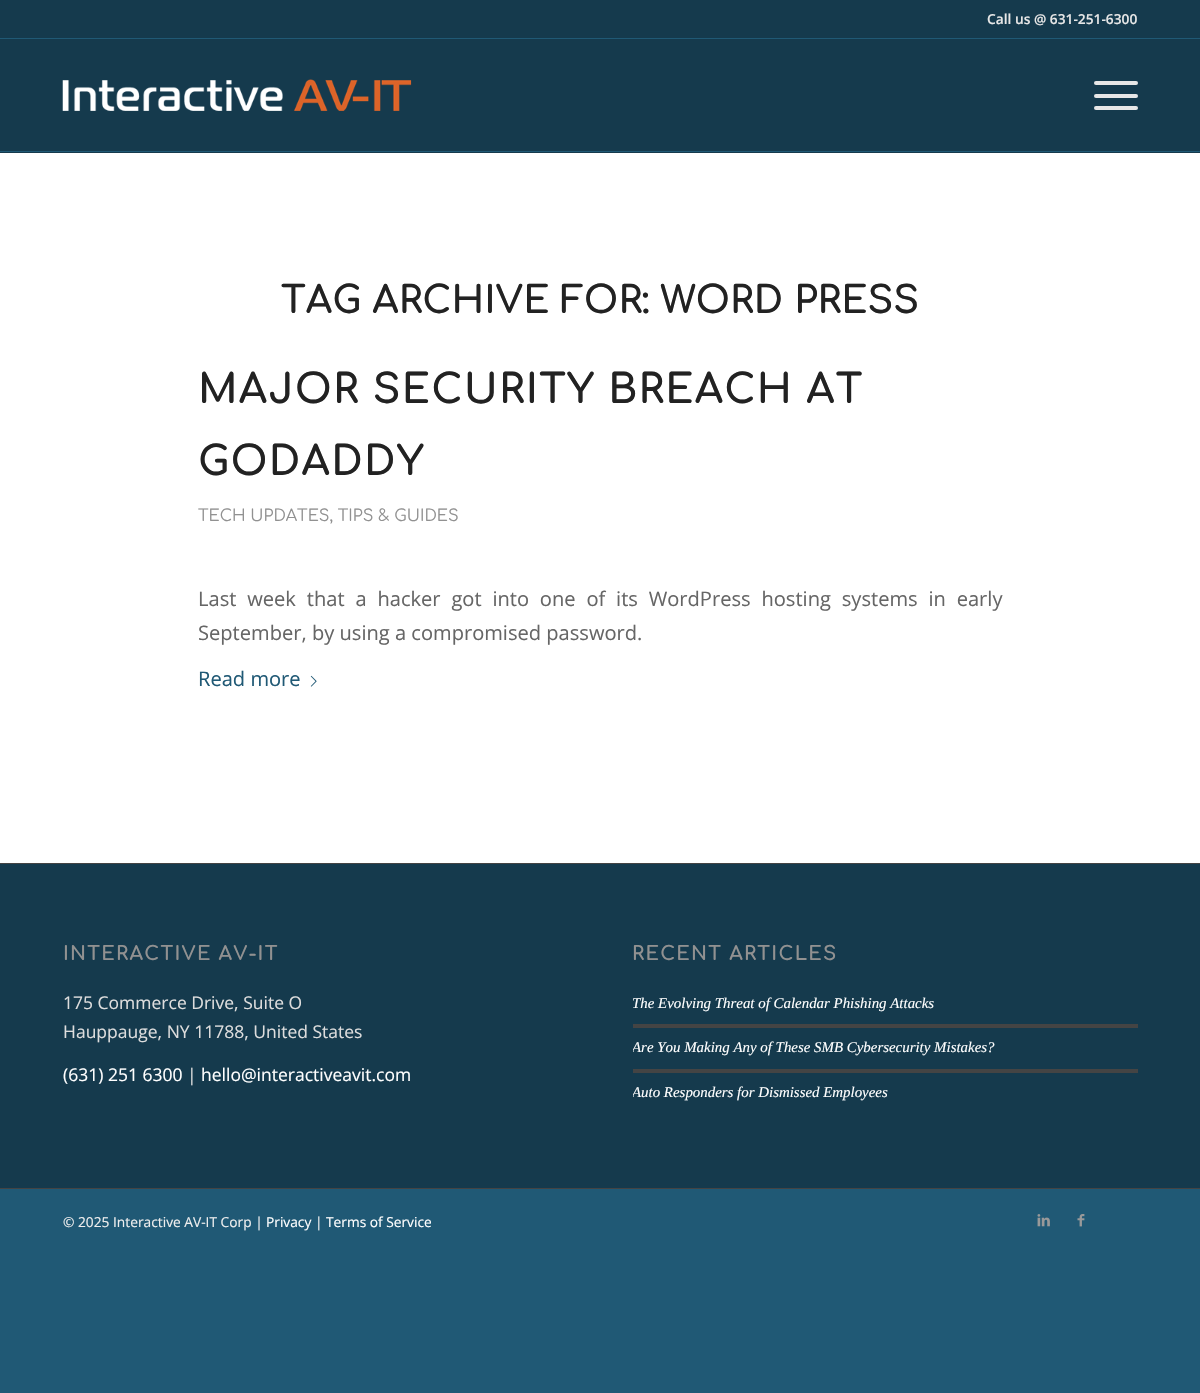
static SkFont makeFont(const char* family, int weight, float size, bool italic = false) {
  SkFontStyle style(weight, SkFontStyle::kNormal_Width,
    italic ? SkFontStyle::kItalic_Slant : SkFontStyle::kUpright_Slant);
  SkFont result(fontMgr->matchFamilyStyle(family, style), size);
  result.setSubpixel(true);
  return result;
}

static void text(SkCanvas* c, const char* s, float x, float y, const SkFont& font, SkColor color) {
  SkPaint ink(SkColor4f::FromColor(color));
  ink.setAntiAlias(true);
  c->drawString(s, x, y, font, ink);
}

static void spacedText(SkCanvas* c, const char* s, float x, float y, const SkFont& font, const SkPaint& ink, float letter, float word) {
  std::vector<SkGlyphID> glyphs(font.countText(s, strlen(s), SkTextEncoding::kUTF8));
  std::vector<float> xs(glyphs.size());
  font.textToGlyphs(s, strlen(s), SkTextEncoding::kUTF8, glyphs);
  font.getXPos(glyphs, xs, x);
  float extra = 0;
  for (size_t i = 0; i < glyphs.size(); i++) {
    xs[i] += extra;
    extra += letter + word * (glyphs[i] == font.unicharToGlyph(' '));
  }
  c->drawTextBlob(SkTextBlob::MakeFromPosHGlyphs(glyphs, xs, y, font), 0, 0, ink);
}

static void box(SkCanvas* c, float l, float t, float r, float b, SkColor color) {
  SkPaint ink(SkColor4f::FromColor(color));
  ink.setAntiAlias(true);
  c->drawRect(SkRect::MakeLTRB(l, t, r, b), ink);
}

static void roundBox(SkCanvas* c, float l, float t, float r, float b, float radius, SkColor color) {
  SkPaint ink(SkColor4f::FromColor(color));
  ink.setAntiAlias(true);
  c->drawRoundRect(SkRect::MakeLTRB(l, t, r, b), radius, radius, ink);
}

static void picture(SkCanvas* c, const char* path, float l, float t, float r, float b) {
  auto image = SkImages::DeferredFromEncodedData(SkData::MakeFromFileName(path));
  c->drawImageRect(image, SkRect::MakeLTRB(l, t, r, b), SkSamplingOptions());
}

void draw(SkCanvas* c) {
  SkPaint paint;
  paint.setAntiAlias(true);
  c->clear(0xff205975);
  box(c, 0, 0, 1200, 38, 0xff153a4d);
  SkFont face1 = makeFont("Open Sans", 600, 13.75f);
  text(c, "Call us @ 631-251-6300", 987, 24, face1, 0xffe7e7e7);
  box(c, 0, 39, 1200, 153, 0xff153a4d);
  box(c, 0, 151, 1200, 152, 0xff205975);
  picture(c, "img_01.png", 62, 79, 412, 111);
  roundBox(c, 1094, 94, 1138, 98, 2, 0xffe7e7e7);
  roundBox(c, 1094, 81, 1138, 85, 2, 0xffe7e7e7);
  roundBox(c, 1094, 106, 1138, 110, 2, 0xffe7e7e7);
  box(c, 0, 864, 1200, 1188, 0xff153a4d);
  box(c, 0, 153, 1200, 863, 0xffffffff);
  SkFont face2 = makeFont("Comfortaa", 700, 37.5f);
  text(c, "TAG ARCHIVE FOR: WORD PRESS", 281, 313, face2, 0xff222222);
  SkFont face3 = makeFont("Comfortaa", 700, 40.25f);
  paint.setColor(0xff222222);
  spacedText(c, "MAJOR SECURITY BREACH AT", 198, 403, face3, paint, 1.25f, 0);
  spacedText(c, "GODADDY", 198, 475, face3, paint, 1.25f, 0);
  SkFont face4 = makeFont("Comfortaa", 400, 16.1f);
  text(c, "TECH UPDATES, TIPS & GUIDES", 198, 521, face4, 0xff919191);
  SkFont face5 = makeFont("Open Sans", 400, 20.1f);
  paint.setColor(0xff666666);
  spacedText(c, "Last week that a hacker got into one of its WordPress hosting systems in early", 198, 606, face5, paint, 0, 5.6f);
  text(c, "September, by using a compromised password.", 198, 640, face5, 0xff666666);
  text(c, "Read more", 198, 686, face5, 0xff205975);
  picture(c, "img_02.png", 310, 675, 317, 687);
  box(c, 0, 863, 1200, 864, 0xff444444);
  SkFont face6 = makeFont("Comfortaa", 700, 19.25f);
  paint.setColor(0xff919191);
  spacedText(c, "INTERACTIVE AV-IT", 63, 960, face6, paint, 1.25f, 0);
  SkFont face7 = makeFont("Open Sans", 400, 17.5f);
  text(c, "175 Commerce Drive, Suite O", 63, 1009, face7, 0xffdddddd);
  text(c, "Hauppauge, NY 11788, United States", 63, 1038, face7, 0xffdddddd);
  text(c, "(631) 251 6300", 63, 1081, face7, 0xffffffff);
  text(c, "|", 187, 1081, face7, 0xffdddddd);
  text(c, "hello@interactiveavit.com", 201, 1081, face7, 0xffffffff);
  spacedText(c, "RECENT ARTICLES", 632, 960, face6, paint, 1.25f, 0);
  SkFont face8 = makeFont("Liberation Serif", 400, 14.9f, true);
  text(c, "The Evolving Threat of Calendar Phishing Attacks", 632, 1008, face8, 0xffffffff);
  box(c, 633, 1024, 1138, 1028, 0xff444444);
  c->save();
  c->clipRect(SkRect::MakeLTRB(633, 920, 1138, 1114));
  text(c, "Are You Making Any of These SMB Cybersecurity Mistakes?", 632, 1052, face8, 0xffffffff);
  c->restore();
  box(c, 633, 1069, 1138, 1073, 0xff444444);
  c->save();
  c->clipRect(SkRect::MakeLTRB(633, 920, 1138, 1114));
  text(c, "Auto Responders for Dismissed Employees", 632, 1097, face8, 0xffffffff);
  c->restore();
  box(c, 0, 1188, 1200, 1189, 0xff444444);
  SkFont face9 = makeFont("Open Sans", 400, 13.75f);
  text(c, "© 2025 Interactive AV-IT Corp |", 63, 1227, face9, 0xffeeeeee);
  text(c, "Privacy", 266, 1227, face9, 0xffffffff);
  text(c, "|", 315, 1227, face9, 0xffeeeeee);
  text(c, "Terms of Service", 326, 1227, face9, 0xffffffff);
  picture(c, "img_03.png", 1037, 1214, 1050, 1227);
  picture(c, "img_04.png", 1077, 1214, 1085, 1227);
}
